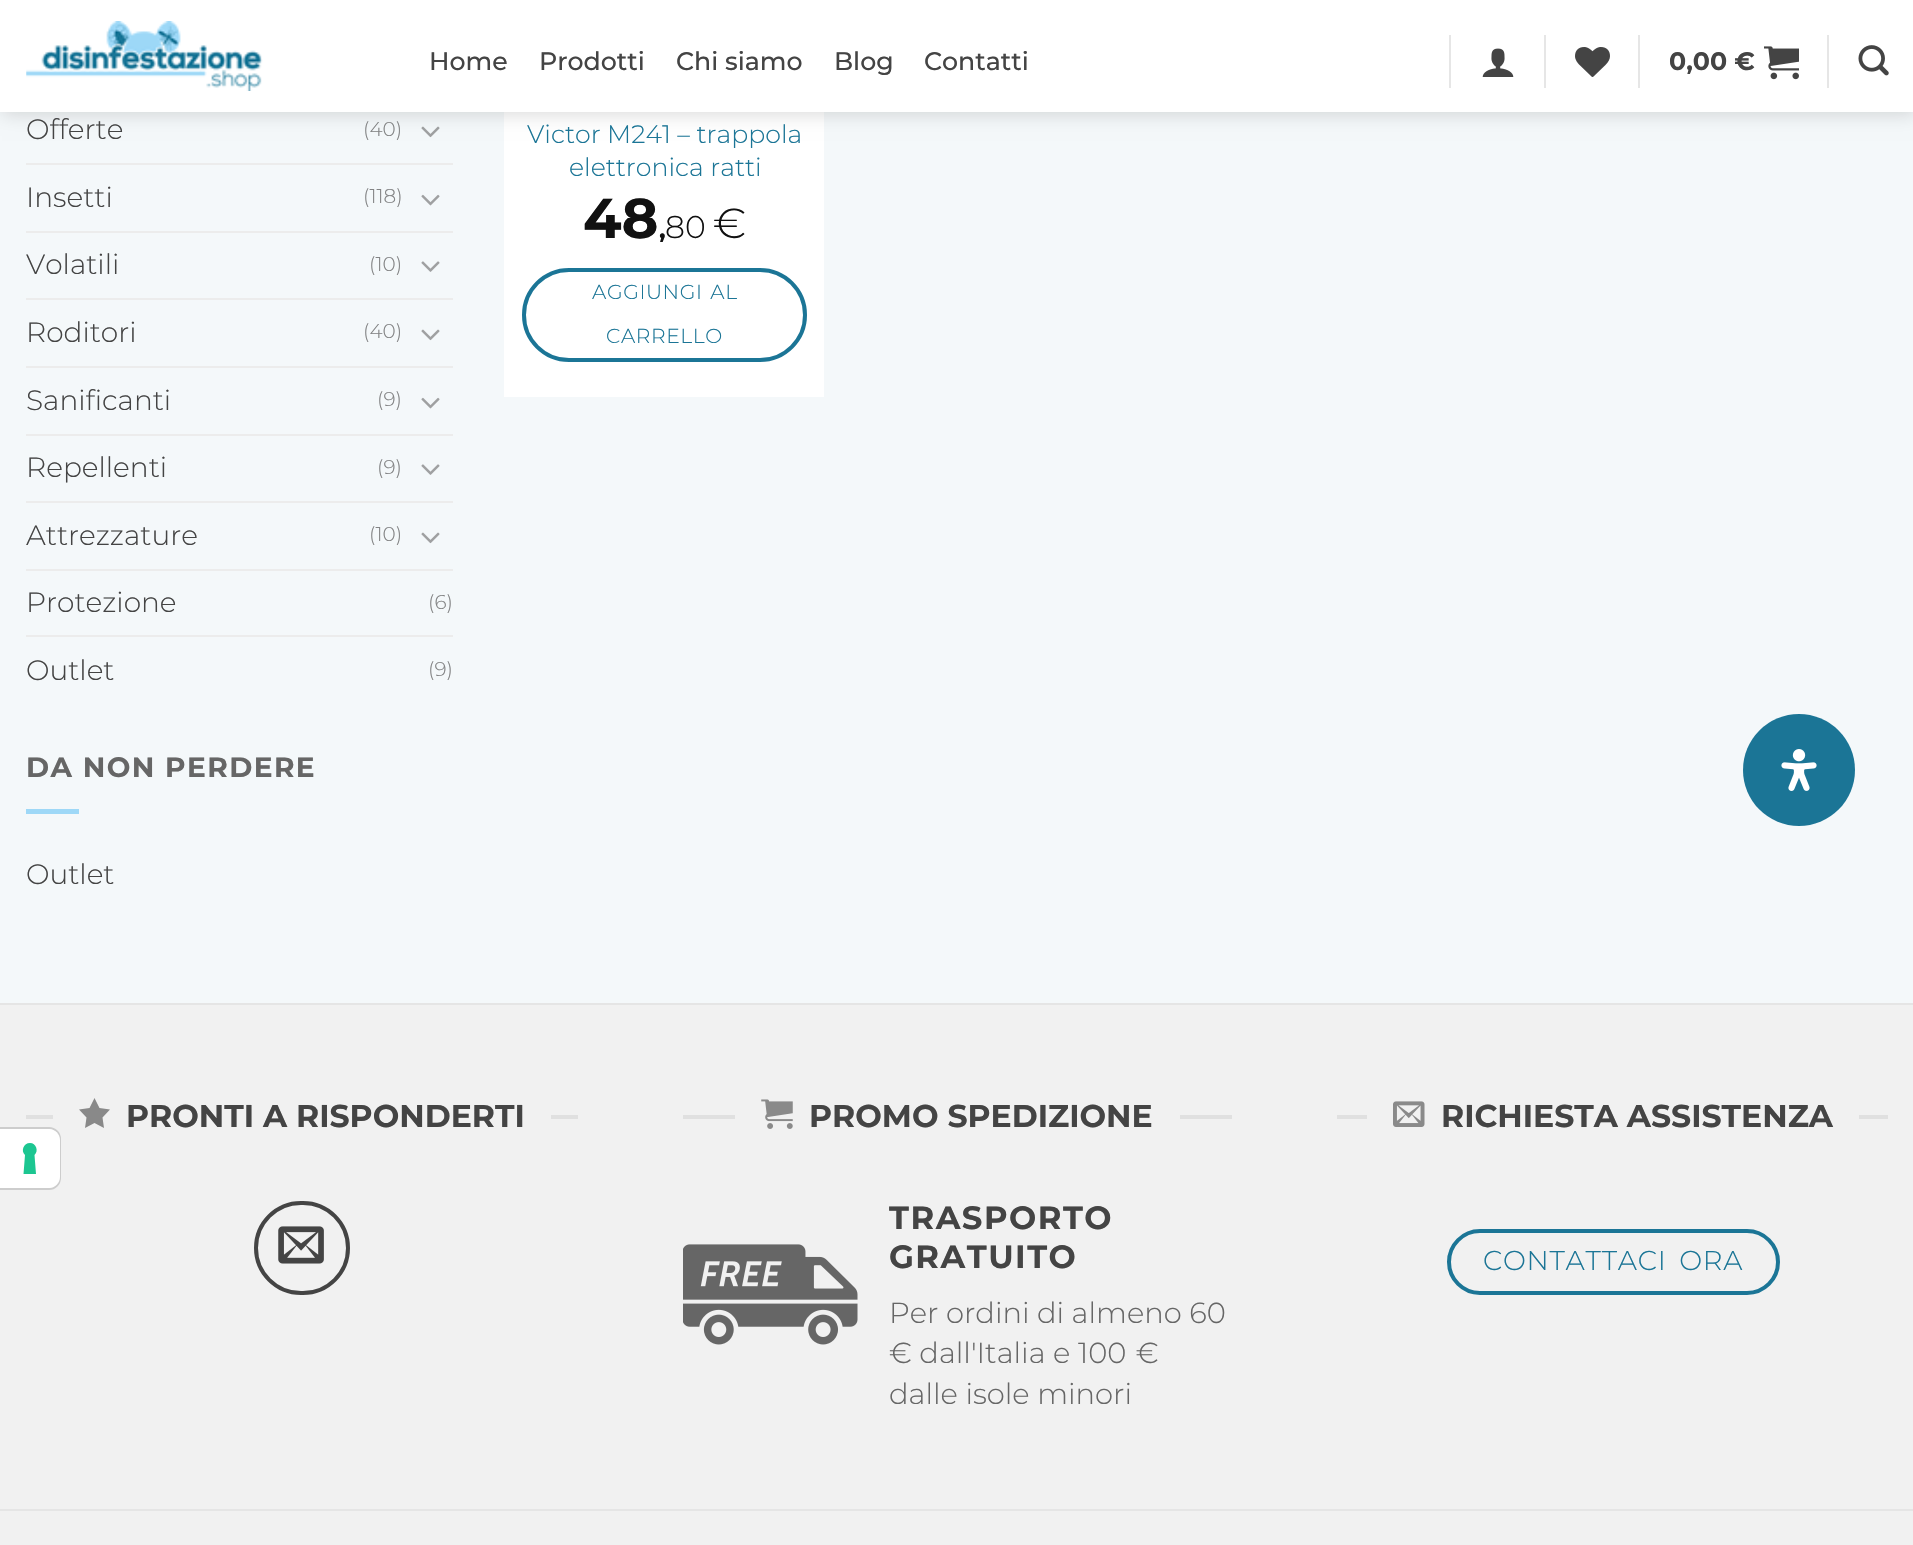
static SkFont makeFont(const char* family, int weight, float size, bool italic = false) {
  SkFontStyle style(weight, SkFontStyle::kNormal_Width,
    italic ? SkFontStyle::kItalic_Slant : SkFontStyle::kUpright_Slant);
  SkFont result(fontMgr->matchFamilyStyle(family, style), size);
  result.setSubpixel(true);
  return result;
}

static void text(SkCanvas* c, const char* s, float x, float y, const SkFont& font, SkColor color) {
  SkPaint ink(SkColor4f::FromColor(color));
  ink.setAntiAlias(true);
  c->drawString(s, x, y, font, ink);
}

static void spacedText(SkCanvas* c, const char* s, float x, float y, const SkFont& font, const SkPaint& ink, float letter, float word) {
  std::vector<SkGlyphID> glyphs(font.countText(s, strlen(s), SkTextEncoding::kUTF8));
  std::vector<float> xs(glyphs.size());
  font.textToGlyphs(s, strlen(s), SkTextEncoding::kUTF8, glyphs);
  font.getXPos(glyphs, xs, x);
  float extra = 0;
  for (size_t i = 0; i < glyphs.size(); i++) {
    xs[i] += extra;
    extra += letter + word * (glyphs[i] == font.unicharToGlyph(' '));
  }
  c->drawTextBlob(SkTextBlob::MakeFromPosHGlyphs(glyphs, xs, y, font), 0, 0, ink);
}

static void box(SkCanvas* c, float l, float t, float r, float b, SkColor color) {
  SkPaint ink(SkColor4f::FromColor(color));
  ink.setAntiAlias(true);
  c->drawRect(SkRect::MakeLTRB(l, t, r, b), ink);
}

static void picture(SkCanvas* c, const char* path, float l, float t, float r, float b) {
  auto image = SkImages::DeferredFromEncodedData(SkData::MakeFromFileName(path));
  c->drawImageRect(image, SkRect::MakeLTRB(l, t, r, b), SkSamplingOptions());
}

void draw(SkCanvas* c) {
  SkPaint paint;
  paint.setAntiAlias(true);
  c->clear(0xfff4f8fa);
  picture(c, "img_06.png", 421, 126, 440, 138);
  box(c, 504, 112, 824, 397, 0xffffffff);
  paint.setColor(0x26000000);
  paint.setMaskFilter(SkMaskFilter::MakeBlur(kNormal_SkBlurStyle, 9));
  c->drawRect(SkRect::MakeLTRB(2, 2, 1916, 114), paint);
  paint.setMaskFilter(nullptr);
  box(c, 0, 0, 1913, 112, 0xffffffff);
  picture(c, "img_01.png", 26, 21, 263, 91);
  SkFont face1 = makeFont("Montserrat", 500, 25.25f);
  text(c, "Home", 429, 70, face1, 0xff444444);
  text(c, "Prodotti", 539, 70, face1, 0xff444444);
  text(c, "Chi siamo", 676, 70, face1, 0xff444444);
  text(c, "Blog", 834, 70, face1, 0xff444444);
  text(c, "Contatti", 924, 70, face1, 0xff444444);
  box(c, 1449, 35, 1451, 88, 0xffe6e6e6);
  picture(c, "img_02.png", 1482, 48, 1514, 77);
  box(c, 1544, 35, 1546, 88, 0xffe6e6e6);
  picture(c, "img_03.png", 1575, 47, 1610, 77);
  box(c, 1638, 35, 1640, 88, 0xffe6e6e6);
  SkFont face2 = makeFont("Montserrat", 700, 25.25f);
  text(c, "0,00 €", 1669, 70, face2, 0xff444444);
  picture(c, "img_04.png", 1764, 46, 1799, 80);
  box(c, 1827, 35, 1829, 88, 0xffe6e6e6);
  picture(c, "img_05.png", 1858, 45, 1889, 76);
  SkFont face3 = makeFont("Montserrat", 300, 28);
  text(c, "Offerte", 26, 139, face3, 0xff444444);
  SkFont face4 = makeFont("Montserrat", 300, 20);
  text(c, "(40)", 363, 136, face4, 0xff828384);
  box(c, 26, 163, 453, 165, 0xffececec);
  text(c, "Insetti", 26, 207, face3, 0xff444444);
  text(c, "(118)", 363, 203, face4, 0xff828384);
  picture(c, "img_07.png", 421, 194, 440, 206);
  box(c, 26, 231, 453, 233, 0xffececec);
  text(c, "Volatili", 26, 274, face3, 0xff444444);
  text(c, "(10)", 369, 271, face4, 0xff828384);
  picture(c, "img_08.png", 421, 261, 440, 272);
  box(c, 26, 298, 453, 300, 0xffececec);
  text(c, "Roditori", 26, 342, face3, 0xff444444);
  text(c, "(40)", 363, 338, face4, 0xff828384);
  picture(c, "img_06.png", 421, 329, 440, 341);
  box(c, 26, 366, 453, 368, 0xffececec);
  text(c, "Sanificanti", 26, 410, face3, 0xff444444);
  text(c, "(9)", 377, 406, face4, 0xff828384);
  picture(c, "img_07.png", 421, 397, 440, 409);
  box(c, 26, 434, 453, 436, 0xffececec);
  text(c, "Repellenti", 26, 477, face3, 0xff444444);
  text(c, "(9)", 377, 474, face4, 0xff828384);
  picture(c, "img_08.png", 421, 464, 440, 475);
  box(c, 26, 501, 453, 503, 0xffececec);
  text(c, "Attrezzature", 26, 545, face3, 0xff444444);
  text(c, "(10)", 369, 541, face4, 0xff828384);
  picture(c, "img_06.png", 421, 532, 440, 544);
  box(c, 26, 569, 453, 571, 0xffececec);
  text(c, "Protezione", 26, 612, face3, 0xff444444);
  text(c, "(6)", 428, 609, face4, 0xff828384);
  box(c, 26, 635, 453, 637, 0xffececec);
  text(c, "Outlet", 26, 680, face3, 0xff444444);
  text(c, "(9)", 428, 676, face4, 0xff828384);
  SkFont face5 = makeFont("Montserrat", 700, 28);
  paint.setColor(0xff666666);
  spacedText(c, "DA NON PERDERE", 26, 777, face5, paint, 1.4f, 0);
  box(c, 26, 809, 79, 814, 0xff9ed8f7);
  text(c, "Outlet", 26, 884, face3, 0xff444444);
  SkFont face6 = makeFont("Montserrat", 300, 25.25f);
  text(c, "Victor M241 – trappola", 527, 143, face6, 0xff1b7596);
  text(c, "elettronica ratti", 569, 176, face6, 0xff1b7596);
  SkFont face7 = makeFont("Montserrat", 700, 56);
  text(c, "48", 583, 238, face7, 0xff111111);
  text(c, ",", 659, 238, face2, 0xff111111);
  SkFont face8 = makeFont("Montserrat", 300, 31.5f);
  text(c, "80", 665, 238, face8, 0xff111111);
  SkFont face9 = makeFont("Montserrat", 300, 42);
  text(c, "€", 713, 238, face9, 0xff111111);
  paint.setStyle(SkPaint::kStroke_Style);
  paint.setStrokeWidth(4);
  paint.setColor(0xff1b7596);
  c->drawRoundRect(SkRect::MakeLTRB(524, 270, 805, 360), 45, 45, paint);
  SkFont face10 = makeFont("Montserrat", 300, 20.25f);
  paint.setStyle(SkPaint::kFill_Style);
  spacedText(c, "AGGIUNGI AL", 592, 299, face10, paint, 0.6f, 2);
  spacedText(c, "CARRELLO", 606, 343, face10, paint, 0.6f, 0);
  box(c, 0, 1005, 1913, 1509, 0xfff1f1f1);
  box(c, 0, 1003, 1913, 1005, 0xffe5e5e5);
  box(c, 26, 1115, 53, 1119, 0xffe0e0e0);
  paint.setColor(0xff898989);
  c->drawPath(SkPathBuilder().moveTo(110, 1109.5f).lineTo(99.5f, 1108).lineTo(94.5f, 1098).lineTo(89.5f, 1108).lineTo(79, 1109.5f).lineTo(86.5f, 1117.5f).lineTo(85, 1128).lineTo(94.5f, 1123).lineTo(104, 1128).lineTo(102.5f, 1117.5f).close().detach(), paint);
  SkFont face11 = makeFont("Montserrat", 700, 31.5f);
  text(c, "PRONTI A RISPONDERTI", 126, 1127, face11, 0xff444444);
  box(c, 551, 1115, 578, 1119, 0xffe0e0e0);
  paint.setStyle(SkPaint::kStroke_Style);
  paint.setColor(0xff444444);
  c->drawRoundRect(SkRect::MakeLTRB(256, 1203, 348, 1293), 45, 45, paint);
  picture(c, "img_09.png", 278, 1226, 324, 1264);
  box(c, 683, 1115, 735, 1119, 0xffe0e0e0);
  picture(c, "img_10.png", 761, 1099, 793, 1129);
  text(c, "PROMO SPEDIZIONE", 809, 1127, face11, 0xff444444);
  box(c, 1180, 1115, 1232, 1119, 0xffe0e0e0);
  picture(c, "img_11.png", 683, 1244, 858, 1345);
  SkFont face12 = makeFont("Montserrat", 700, 32.25f);
  paint.setStyle(SkPaint::kFill_Style);
  spacedText(c, "TRASPORTO", 889, 1229, face12, paint, 1.5f, 0);
  spacedText(c, "GRATUITO", 889, 1268, face12, paint, 1.5f, 0);
  SkFont face13 = makeFont("Montserrat", 300, 29);
  text(c, "Per ordini di almeno 60", 889, 1323, face13, 0xff666666);
  text(c, "€ dall'Italia e", 889, 1363, face13, 0xff666666);
  paint.setColor(0xff666666);
  spacedText(c, "100 €", 1078, 1363, face13, paint, 0, 2);
  text(c, "dalle isole minori", 889, 1404, face13, 0xff666666);
  box(c, 1337, 1115, 1367, 1119, 0xffe0e0e0);
  picture(c, "img_12.png", 1393, 1101, 1425, 1127);
  text(c, "RICHIESTA ASSISTENZA", 1441, 1127, face11, 0xff444444);
  box(c, 1859, 1115, 1888, 1119, 0xffe0e0e0);
  paint.setStyle(SkPaint::kStroke_Style);
  paint.setColor(0xff1b7596);
  c->drawRoundRect(SkRect::MakeLTRB(1449, 1231, 1778, 1293), 31, 31, paint);
  SkFont face14 = makeFont("Montserrat", 300, 27.25f);
  paint.setStyle(SkPaint::kFill_Style);
  spacedText(c, "CONTATTACI ORA", 1483, 1270, face14, paint, 0.75f, 5);
  box(c, 0, 1511, 1913, 1545, 0xfff1f1f1);
  box(c, 0, 1509, 1913, 1511, 0xffe5e5e5);
  c->drawCircle(1799, 770, 56, paint);
  picture(c, "img_13.png", 1781, 749, 1817, 791);
  paint.setStyle(SkPaint::kStroke_Style);
  paint.setStrokeWidth(2);
  paint.setColor(0xffcdcdcd);
  c->drawPath(SkPathBuilder().moveTo(-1, 1128).lineTo(49, 1128).cubicTo(55, 1128, 60, 1133, 60, 1139).lineTo(60, 1178).cubicTo(60, 1184, 55, 1189, 49, 1189).lineTo(-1, 1189).close().detach(), paint);
  paint.setStyle(SkPaint::kFill_Style);
  paint.setColor(0xffffffff);
  c->drawPath(SkPathBuilder().moveTo(0, 1129).lineTo(49, 1129).cubicTo(55, 1129, 60, 1134, 60, 1140).lineTo(60, 1177).cubicTo(60, 1183, 55, 1188, 49, 1188).lineTo(0, 1188).close().detach(), paint);
  paint.setColor(0xff1cc691);
  c->drawPath(SkPathBuilder(SkPathFillType::kEvenOdd).moveTo(30, 1143).cubicTo(36, 1143, 39, 1151, 34.5f, 1155).lineTo(36, 1174).lineTo(23.5f, 1174).lineTo(25, 1155).cubicTo(20.5f, 1151, 23.5f, 1143, 30, 1143).close().detach(), paint);
}
